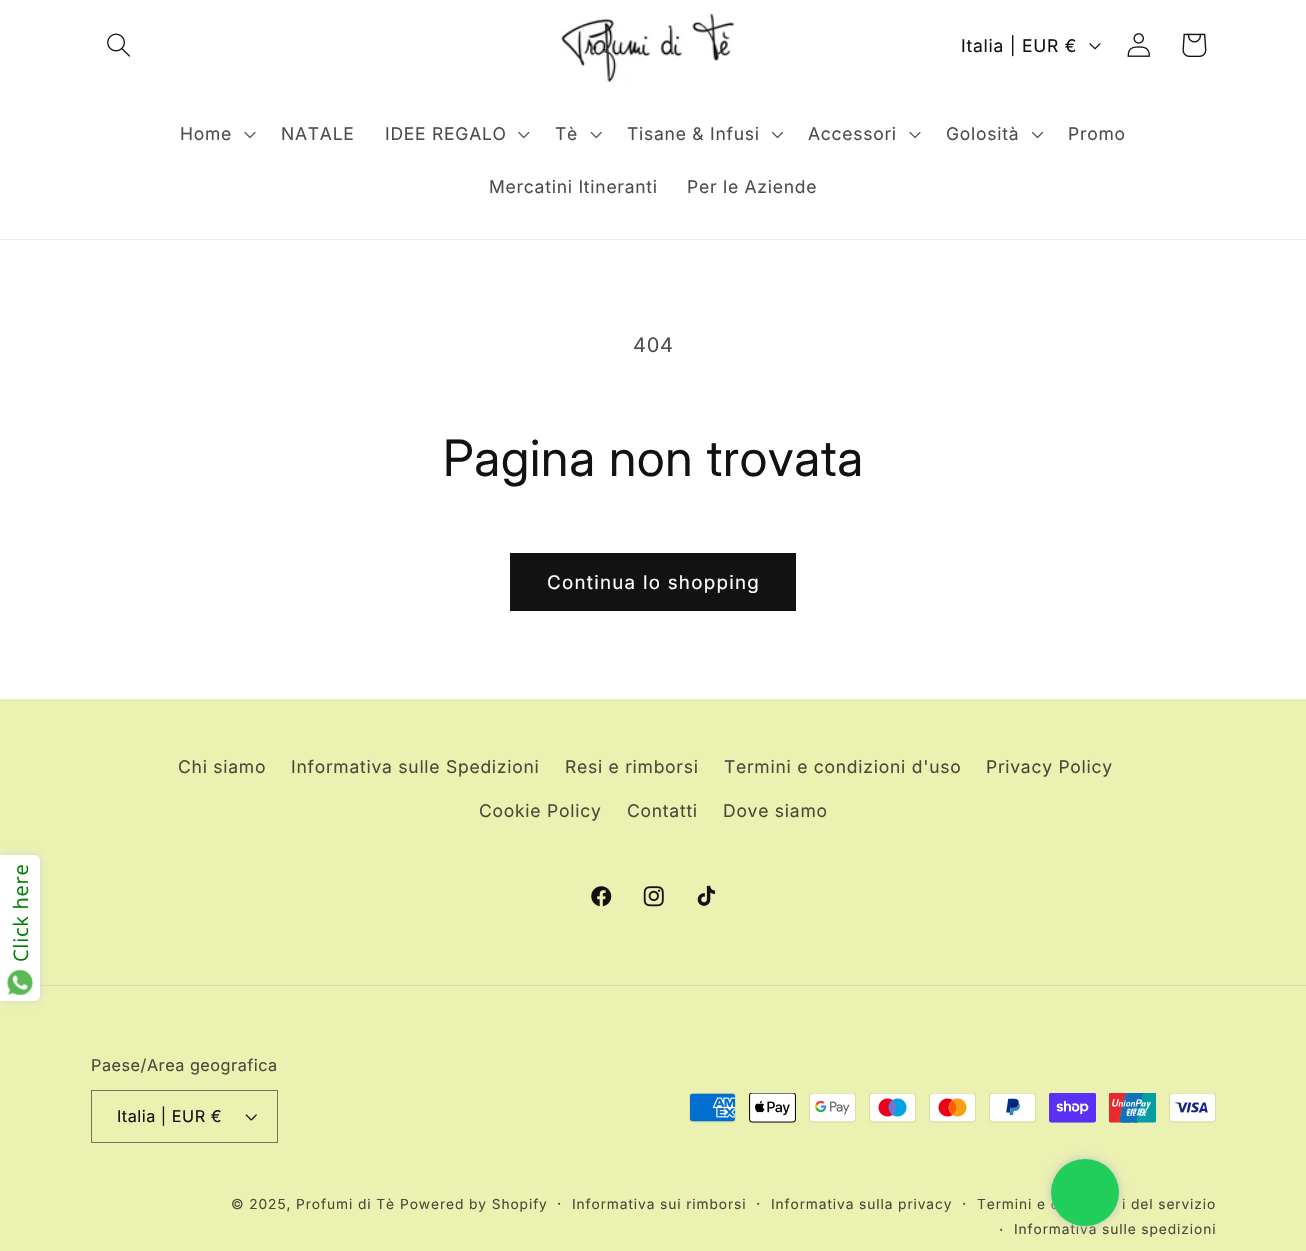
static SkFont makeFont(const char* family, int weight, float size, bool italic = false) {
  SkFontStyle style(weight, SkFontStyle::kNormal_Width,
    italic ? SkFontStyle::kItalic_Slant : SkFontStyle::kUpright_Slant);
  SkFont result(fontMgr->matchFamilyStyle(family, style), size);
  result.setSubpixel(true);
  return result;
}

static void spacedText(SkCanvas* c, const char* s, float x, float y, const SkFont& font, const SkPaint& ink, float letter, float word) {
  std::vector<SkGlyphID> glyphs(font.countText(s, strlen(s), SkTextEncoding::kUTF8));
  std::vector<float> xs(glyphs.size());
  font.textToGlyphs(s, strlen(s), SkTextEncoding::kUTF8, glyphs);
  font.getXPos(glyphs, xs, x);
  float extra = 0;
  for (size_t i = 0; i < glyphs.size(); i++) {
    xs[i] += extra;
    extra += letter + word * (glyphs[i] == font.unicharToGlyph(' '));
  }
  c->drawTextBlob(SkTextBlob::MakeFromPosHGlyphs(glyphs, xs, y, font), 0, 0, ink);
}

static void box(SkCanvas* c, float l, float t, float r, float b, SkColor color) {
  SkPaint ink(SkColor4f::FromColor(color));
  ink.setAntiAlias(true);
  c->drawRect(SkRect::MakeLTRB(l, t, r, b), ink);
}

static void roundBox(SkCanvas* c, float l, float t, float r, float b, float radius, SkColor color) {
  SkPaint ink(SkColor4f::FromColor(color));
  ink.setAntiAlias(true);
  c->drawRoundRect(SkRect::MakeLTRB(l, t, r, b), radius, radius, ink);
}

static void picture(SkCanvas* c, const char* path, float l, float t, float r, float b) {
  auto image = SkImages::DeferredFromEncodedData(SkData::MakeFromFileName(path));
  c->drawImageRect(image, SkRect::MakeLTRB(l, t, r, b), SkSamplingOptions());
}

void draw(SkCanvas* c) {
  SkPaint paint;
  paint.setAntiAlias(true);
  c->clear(0xffffffff);
  box(c, 0, 239, 1306, 240, 0xffececec);
  picture(c, "img_01.png", 107, 33, 130, 57);
  picture(c, "img_02.png", 561, 13, 734, 83);
  SkFont face1 = makeFont("Inter", 400, 17.5f);
  paint.setColor(0xff121212);
  spacedText(c, "Italia | EUR €", 961, 52, face1, paint, 0.75f, 0);
  picture(c, "img_03.png", 1089, 43, 1101, 50);
  picture(c, "img_04.png", 1127, 33, 1150, 57);
  picture(c, "img_05.png", 1182, 33, 1207, 57);
  paint.setColor(0xff4d4d4d);
  spacedText(c, "Home", 180, 140, face1, paint, 0.75f, 0);
  picture(c, "img_06.png", 244, 132, 256, 138);
  spacedText(c, "NATALE", 281, 140, face1, paint, 0.75f, 0);
  spacedText(c, "IDEE REGALO", 385, 140, face1, paint, 0.75f, 0);
  picture(c, "img_07.png", 518, 131, 530, 139);
  spacedText(c, "Tè", 555, 140, face1, paint, 0.75f, 0);
  picture(c, "img_08.png", 590, 131, 602, 139);
  spacedText(c, "Tisane & Infusi", 627, 140, face1, paint, 0.75f, 0);
  picture(c, "img_09.png", 771, 131, 784, 139);
  spacedText(c, "Accessori", 808, 140, face1, paint, 0.75f, 0);
  picture(c, "img_06.png", 909, 132, 921, 138);
  spacedText(c, "Golosità", 946, 140, face1, paint, 0.75f, 0);
  picture(c, "img_09.png", 1031, 131, 1044, 139);
  spacedText(c, "Promo", 1068, 140, face1, paint, 0.75f, 0);
  spacedText(c, "Mercatini Itineranti", 489, 193, face1, paint, 0.75f, 0);
  spacedText(c, "Per le Aziende", 687, 193, face1, paint, 0.75f, 0);
  SkFont face2 = makeFont("Inter", 400, 20);
  spacedText(c, "404", 633, 352, face2, paint, 0.75f, 0);
  SkFont face3 = makeFont("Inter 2", 400, 50);
  paint.setColor(0xff121212);
  spacedText(c, "Pagina non trovata", 443, 476, face3, paint, 0.75f, 0);
  box(c, 510, 553, 796, 611, 0xff121212);
  SkFont face4 = makeFont("Inter", 400, 18.75f);
  paint.setColor(0xffffffff);
  spacedText(c, "Continua lo shopping", 547, 589, face4, paint, 1.25f, 0);
  box(c, 0, 699, 1306, 1251, 0xffeaf1b1);
  box(c, 40, 985, 1306, 986, 0xffd9dfa4);
  paint.setColor(0xffd3d3d3);
  paint.setMaskFilter(SkMaskFilter::MakeBlur(kNormal_SkBlurStyle, 3));
  c->drawRoundRect(SkRect::MakeLTRB(0, 855, 40, 1001), 6, 6, paint);
  paint.setMaskFilter(nullptr);
  paint.setColor(0xffffffff);
  c->drawPath(SkPathBuilder().moveTo(0, 855).lineTo(34, 855).cubicTo(37.5f, 855, 40, 857.5f, 40, 861).lineTo(40, 995).cubicTo(40, 998.5f, 37.5f, 1001, 34, 1001).lineTo(0, 1001).close().detach(), paint);
  SkFont face5 = makeFont("Open Sans", 400, 20);
  paint.setColor(0xff008000);
  c->save();
  c->rotate(-90, 28, 962);
  spacedText(c, "Click here", 28, 962, face5, paint, 0.75f, 0);
  c->restore();
  picture(c, "img_10.png", 7, 969, 33, 995);
  paint.setColor(0xff484a3a);
  spacedText(c, "Chi siamo", 178, 773, face1, paint, 0.75f, 0);
  spacedText(c, "Informativa sulle Spedizioni", 291, 773, face1, paint, 0.75f, 0);
  spacedText(c, "Resi e rimborsi", 565, 773, face1, paint, 0.75f, 0);
  spacedText(c, "Termini e condizioni d'uso", 724, 773, face1, paint, 0.75f, 0);
  spacedText(c, "Privacy Policy", 986, 773, face1, paint, 0.75f, 0);
  spacedText(c, "Cookie Policy", 479, 817, face1, paint, 0.75f, 0);
  spacedText(c, "Contatti", 627, 817, face1, paint, 0.75f, 0);
  spacedText(c, "Dove siamo", 723, 817, face1, paint, 0.75f, 0);
  picture(c, "img_11.png", 591, 886, 612, 907);
  picture(c, "img_12.png", 643, 886, 664, 907);
  picture(c, "img_13.png", 697, 885, 716, 906);
  SkFont face6 = makeFont("Inter", 400, 16.25f);
  spacedText(c, "Paese/Area geografica", 91, 1071, face6, paint, 0.5f, 0);
  picture(c, "img_14.png", 245, 1114, 257, 1121);
  paint.setStyle(SkPaint::kStroke_Style);
  paint.setStrokeWidth(1);
  paint.setColor(0xff73765a);
  c->drawRect(SkRect::MakeLTRB(91.5f, 1090.5f, 277.5f, 1142.5f), paint);
  paint.setStyle(SkPaint::kFill_Style);
  paint.setColor(0xff121212);
  spacedText(c, "Italia | EUR €", 117, 1122, face6, paint, 0.5f, 0);
  picture(c, "img_15.png", 689, 1093, 736, 1123);
  picture(c, "img_16.png", 749, 1093, 796, 1123);
  picture(c, "img_17.png", 809, 1093, 856, 1123);
  picture(c, "img_18.png", 869, 1093, 916, 1123);
  picture(c, "img_19.png", 929, 1093, 976, 1123);
  picture(c, "img_20.png", 989, 1093, 1036, 1123);
  picture(c, "img_21.png", 1049, 1093, 1096, 1123);
  picture(c, "img_22.png", 1109, 1093, 1156, 1123);
  picture(c, "img_23.png", 1169, 1093, 1216, 1123);
  SkFont face7 = makeFont("Inter", 400, 13.75f);
  paint.setColor(0xff484a3a);
  spacedText(c, "© 2025, Profumi di Tè", 231, 1209, face7, paint, 0.9f, 0);
  spacedText(c, "Powered by Shopify", 400, 1209, face7, paint, 0.9f, 0);
  SkFont face8 = makeFont("Inter", 400, 15);
  spacedText(c, "·", 557, 1209, face8, paint, 0.9f, 0);
  spacedText(c, "Informativa sui rimborsi", 572, 1209, face7, paint, 0.9f, 0);
  spacedText(c, "·", 756, 1209, face8, paint, 0.9f, 0);
  spacedText(c, "Informativa sulla privacy", 771, 1209, face7, paint, 0.9f, 0);
  spacedText(c, "·", 962, 1209, face8, paint, 0.9f, 0);
  spacedText(c, "Termini e c", 977, 1209, face7, paint, 0.9f, 0);
  spacedText(c, "i del servizio", 1122, 1209, face7, paint, 0.9f, 0);
  spacedText(c, "·", 999, 1235, face8, paint, 0.9f, 0);
  spacedText(c, "Informativa sulle spedizioni", 1014, 1234, face7, paint, 0.9f, 0);
  paint.setColor(0xffc2c2c2);
  paint.setMaskFilter(SkMaskFilter::MakeBlur(kNormal_SkBlurStyle, 5));
  c->drawRoundRect(SkRect::MakeLTRB(1051, 1159, 1119, 1226), 33.5f, 33.5f, paint);
  paint.setMaskFilter(nullptr);
  roundBox(c, 1051, 1159, 1119, 1226, 33.5f, 0xff22ce5a);
}
